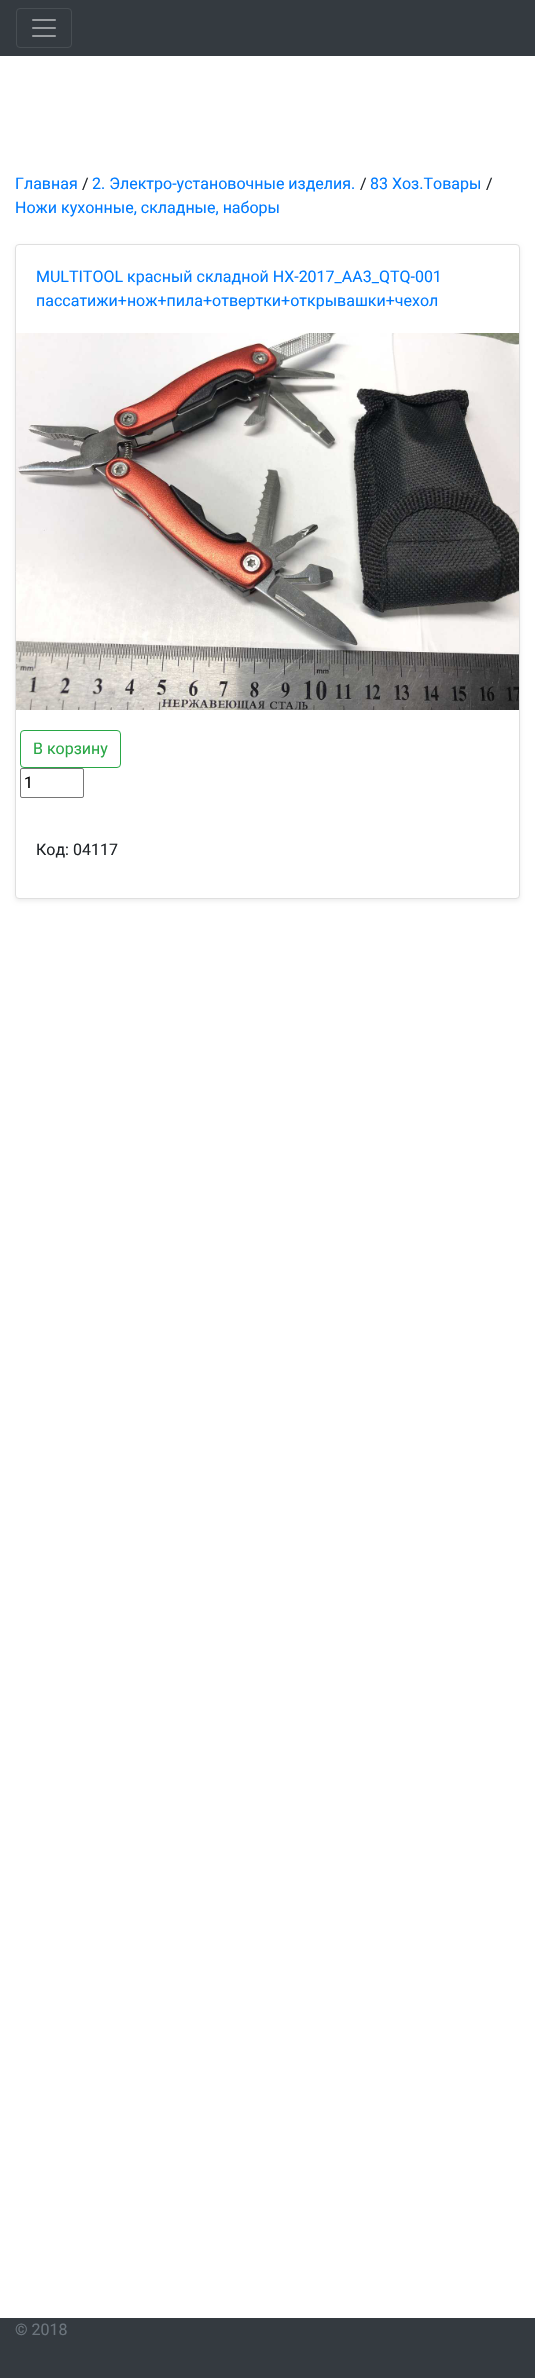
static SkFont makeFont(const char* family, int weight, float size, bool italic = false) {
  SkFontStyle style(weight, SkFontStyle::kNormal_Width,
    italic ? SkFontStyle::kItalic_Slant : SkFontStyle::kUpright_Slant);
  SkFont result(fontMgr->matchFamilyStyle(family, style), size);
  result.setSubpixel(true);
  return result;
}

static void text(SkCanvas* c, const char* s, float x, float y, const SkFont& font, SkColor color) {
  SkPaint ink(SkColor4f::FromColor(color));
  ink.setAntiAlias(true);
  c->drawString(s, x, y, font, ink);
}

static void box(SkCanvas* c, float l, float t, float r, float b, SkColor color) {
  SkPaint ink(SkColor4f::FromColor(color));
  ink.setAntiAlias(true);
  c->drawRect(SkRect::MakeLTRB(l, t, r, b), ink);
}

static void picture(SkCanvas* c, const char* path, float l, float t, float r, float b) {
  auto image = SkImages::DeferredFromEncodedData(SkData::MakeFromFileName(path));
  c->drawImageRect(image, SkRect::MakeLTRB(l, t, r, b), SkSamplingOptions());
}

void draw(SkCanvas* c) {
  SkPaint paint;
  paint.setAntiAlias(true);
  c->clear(0xffffffff);
  box(c, 0, 0, 535, 56, 0xff343a40);
  paint.setStyle(SkPaint::kStroke_Style);
  paint.setStrokeWidth(1);
  paint.setColor(0xff484e53);
  c->drawRoundRect(SkRect::MakeLTRB(16.5f, 8.5f, 71.5f, 47.5f), 3.5f, 3.5f, paint);
  picture(c, "img_01.png", 32, 19, 56, 37);
  SkFont face1 = makeFont("Roboto", 400, 16);
  text(c, "Главная", 15, 189, face1, 0xff007bff);
  text(c, "/", 82, 189, face1, 0xff212529);
  text(c, "2. Электро-установочные изделия.", 92, 189, face1, 0xff007bff);
  text(c, "/", 360, 189, face1, 0xff212529);
  text(c, "83 Хоз.Товары", 370, 189, face1, 0xff007bff);
  text(c, "/", 486, 189, face1, 0xff212529);
  text(c, "Ножи кухонные, складные, наборы", 15, 213, face1, 0xff007bff);
  paint.setStyle(SkPaint::kFill_Style);
  paint.setColor(0x12000000);
  paint.setMaskFilter(SkMaskFilter::MakeBlur(kNormal_SkBlurStyle, 2));
  c->drawRoundRect(SkRect::MakeLTRB(15, 246, 520, 901), 4, 4, paint);
  paint.setMaskFilter(nullptr);
  paint.setColor(0xffffffff);
  c->drawRoundRect(SkRect::MakeLTRB(15.5f, 244.5f, 519.5f, 898.5f), 3.5f, 3.5f, paint);
  paint.setStyle(SkPaint::kStroke_Style);
  paint.setColor(0xffdfdfdf);
  c->drawRoundRect(SkRect::MakeLTRB(15.5f, 244.5f, 519.5f, 898.5f), 3.5f, 3.5f, paint);
  text(c, "MULTITOOL красный складной HX-2017_AA3_QTQ-001", 36, 282, face1, 0xff007bff);
  text(c, "пассатижи+нож+пила+отвертки+открывашки+чехол", 36, 306, face1, 0xff007bff);
  picture(c, "img_02.png", 16, 333, 519, 710);
  paint.setColor(0xff28a745);
  c->drawRoundRect(SkRect::MakeLTRB(20.5f, 730.5f, 120.5f, 767.5f), 3.5f, 3.5f, paint);
  text(c, "В корзину", 33, 754, face1, 0xff28a745);
  paint.setColor(0xff767676);
  c->drawRoundRect(SkRect::MakeLTRB(20.5f, 768.5f, 83.5f, 797.5f), 1.5f, 1.5f, paint);
  text(c, "1", 24, 788, face1, 0xff000000);
  text(c, "Код: 04117", 36, 855, face1, 0xff212529);
  box(c, 0, 2318, 535, 2378, 0xff343a40);
  text(c, "© 2018", 15, 2335, face1, 0xff6c757d);
}
